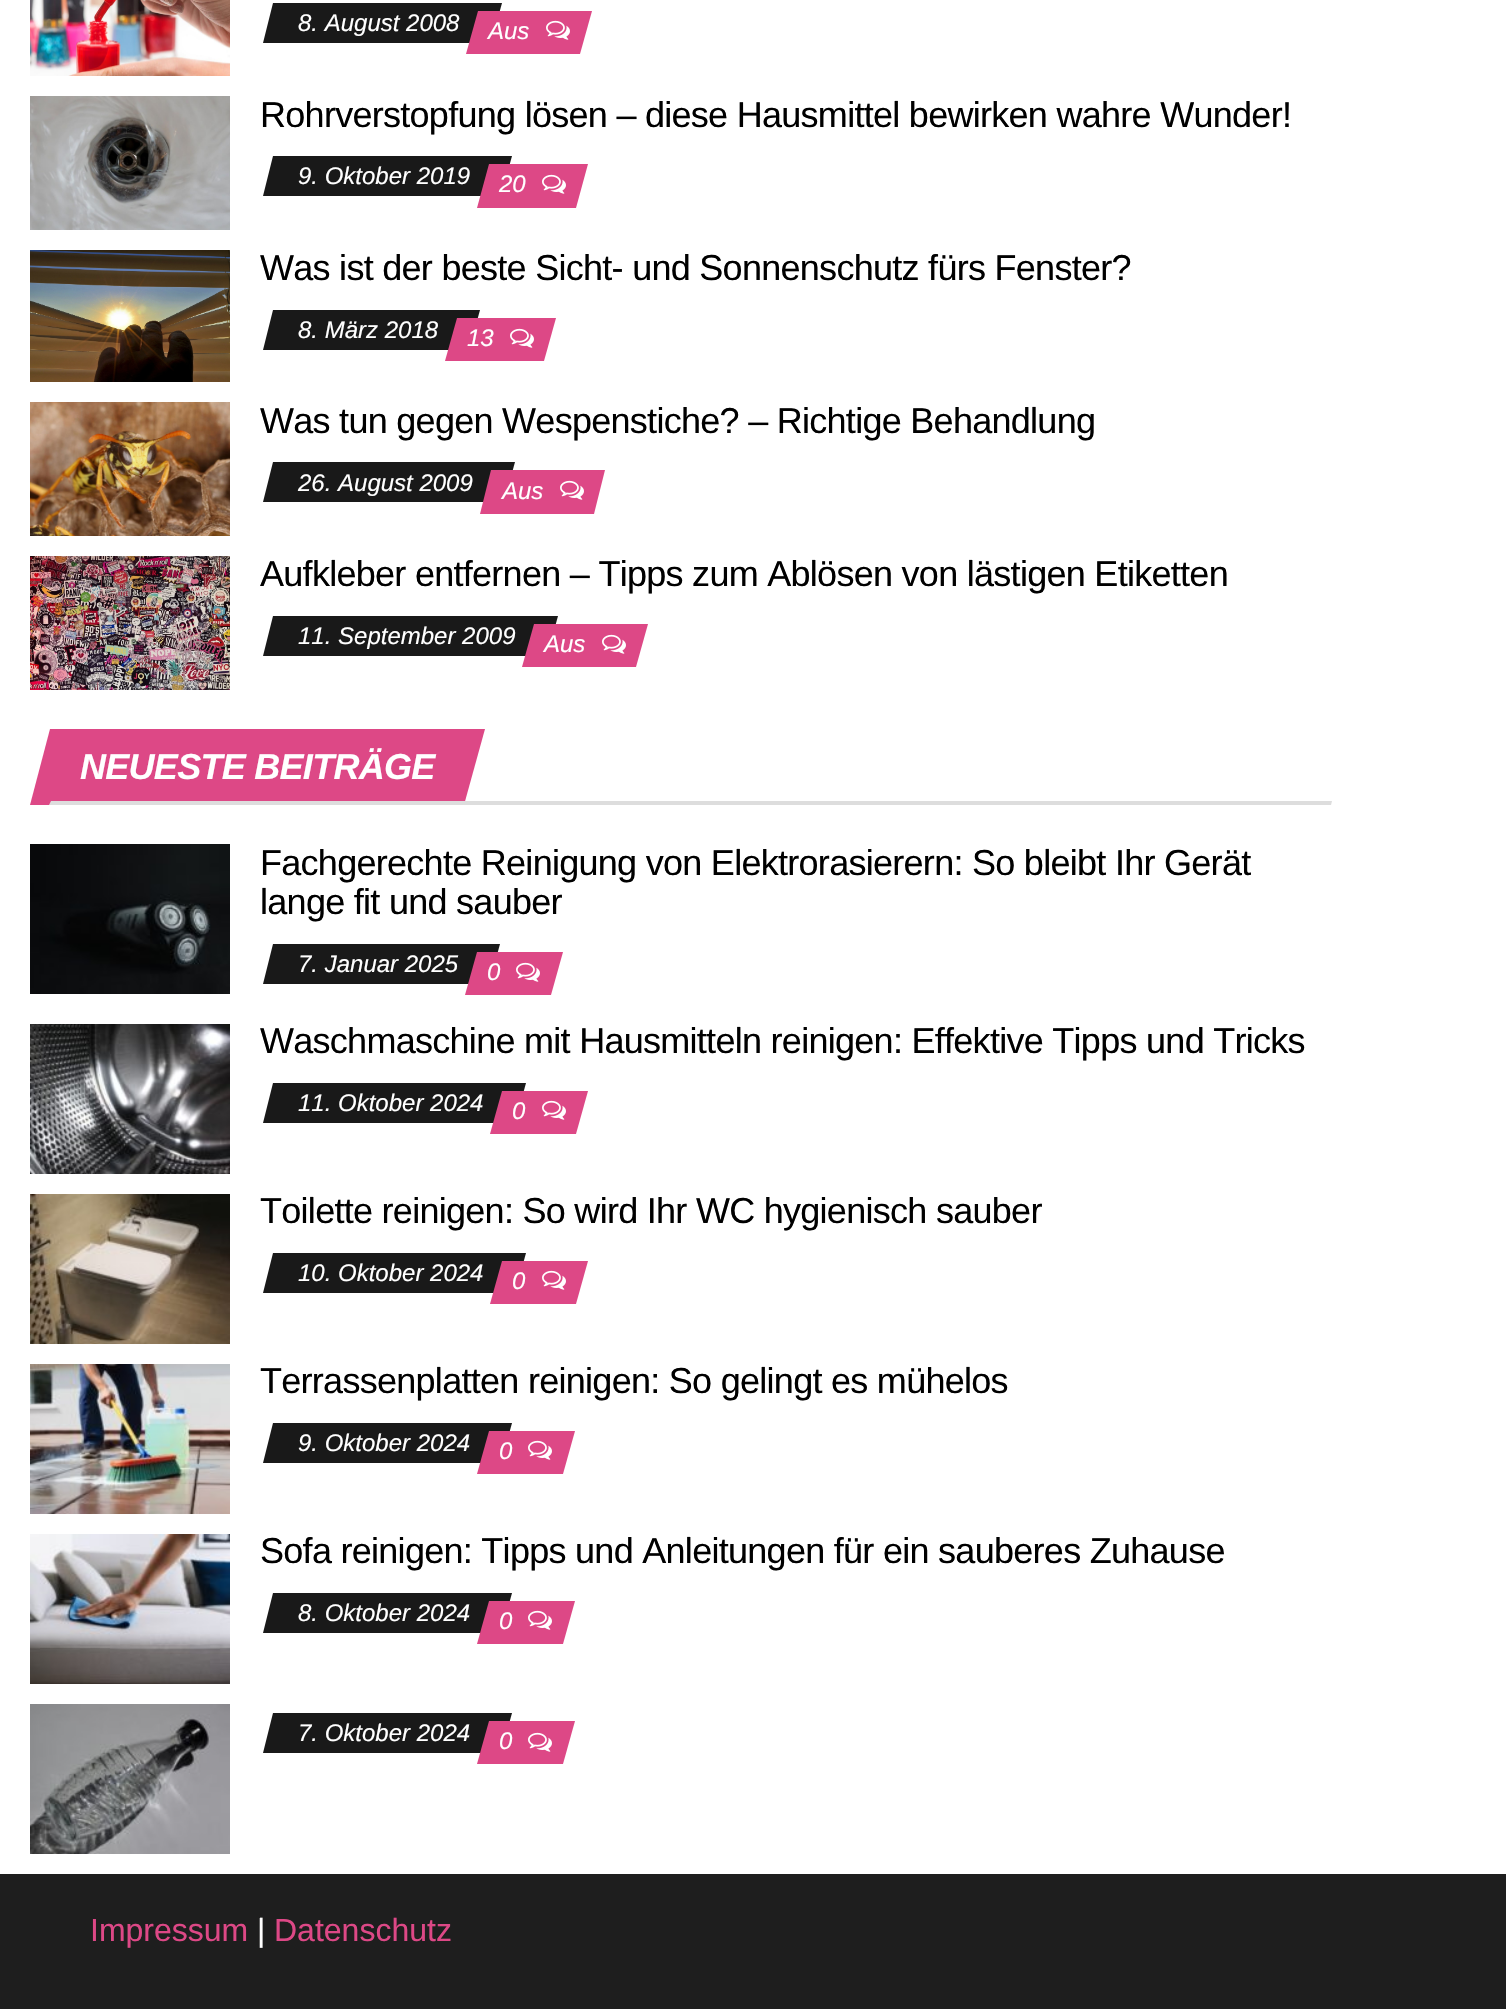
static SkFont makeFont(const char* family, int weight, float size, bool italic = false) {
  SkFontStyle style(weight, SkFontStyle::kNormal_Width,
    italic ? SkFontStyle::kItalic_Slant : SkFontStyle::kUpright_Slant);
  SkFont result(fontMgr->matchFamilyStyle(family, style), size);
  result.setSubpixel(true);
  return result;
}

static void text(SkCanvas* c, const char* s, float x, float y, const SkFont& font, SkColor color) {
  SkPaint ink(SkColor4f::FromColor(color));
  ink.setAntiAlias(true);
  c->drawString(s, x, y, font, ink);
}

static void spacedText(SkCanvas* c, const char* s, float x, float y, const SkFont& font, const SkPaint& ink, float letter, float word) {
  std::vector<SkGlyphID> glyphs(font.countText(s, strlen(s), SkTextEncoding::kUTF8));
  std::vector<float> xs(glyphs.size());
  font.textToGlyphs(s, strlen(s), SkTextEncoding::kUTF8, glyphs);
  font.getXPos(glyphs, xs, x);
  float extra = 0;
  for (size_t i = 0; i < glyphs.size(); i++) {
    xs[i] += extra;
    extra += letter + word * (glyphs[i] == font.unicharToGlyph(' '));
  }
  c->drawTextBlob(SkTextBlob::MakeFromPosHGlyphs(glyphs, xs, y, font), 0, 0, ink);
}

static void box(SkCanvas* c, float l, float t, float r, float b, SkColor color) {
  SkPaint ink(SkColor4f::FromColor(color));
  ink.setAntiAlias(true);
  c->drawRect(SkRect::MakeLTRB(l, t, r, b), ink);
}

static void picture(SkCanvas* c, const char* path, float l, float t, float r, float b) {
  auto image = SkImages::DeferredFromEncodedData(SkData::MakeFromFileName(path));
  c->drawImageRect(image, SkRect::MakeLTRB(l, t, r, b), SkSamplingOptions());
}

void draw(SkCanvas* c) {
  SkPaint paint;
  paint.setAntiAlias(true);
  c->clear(0xffffffff);
  picture(c, "img_01.png", 30, 0, 230, 76);
  paint.setColor(0xff191919);
  c->drawPath(SkPathBuilder().moveTo(273, 3).lineTo(502, 3).lineTo(491, 43).lineTo(263, 43).close().detach(), paint);
  SkFont face1 = makeFont("Liberation Sans", 400, 24, true);
  text(c, "8. August 2008", 298, 31, face1, 0xffffffff);
  paint.setColor(0xffdd4886);
  c->drawPath(SkPathBuilder().moveTo(478, 11).lineTo(592, 11).lineTo(580, 54).lineTo(466, 54).close().detach(), paint);
  text(c, "Aus", 488, 39, face1, 0xffffffff);
  picture(c, "img_02.png", 546, 20, 570, 40);
  picture(c, "img_03.png", 30, 96, 230, 230);
  SkFont face2 = makeFont("Liberation Sans", 400, 36);
  paint.setColor(0xff000000);
  spacedText(c, "Rohrverstopfung lösen – diese Hausmittel bewirken wahre Wunder!", 260, 127, face2, paint, -0.72f, 0);
  paint.setColor(0xff191919);
  c->drawPath(SkPathBuilder().moveTo(273, 156).lineTo(512, 156).lineTo(501, 196).lineTo(263, 196).close().detach(), paint);
  text(c, "9. Oktober 2019", 298, 184, face1, 0xffffffff);
  paint.setColor(0xffdd4886);
  c->drawPath(SkPathBuilder().moveTo(489, 164).lineTo(588, 164).lineTo(576, 208).lineTo(477, 208).close().detach(), paint);
  text(c, "20", 499, 192, face1, 0xffffffff);
  picture(c, "img_02.png", 542, 174, 566, 194);
  picture(c, "img_04.png", 30, 250, 230, 382);
  paint.setColor(0xff000000);
  spacedText(c, "Was ist der beste Sicht- und Sonnenschutz fürs Fenster?", 260, 280, face2, paint, -0.72f, 0);
  paint.setColor(0xff191919);
  c->drawPath(SkPathBuilder().moveTo(273, 310).lineTo(480, 310).lineTo(469, 350).lineTo(263, 350).close().detach(), paint);
  text(c, "8. März 2018", 298, 338, face1, 0xffffffff);
  paint.setColor(0xffdd4886);
  c->drawPath(SkPathBuilder().moveTo(457, 318).lineTo(556, 318).lineTo(544, 361).lineTo(445, 361).close().detach(), paint);
  text(c, "13", 467, 346, face1, 0xffffffff);
  picture(c, "img_02.png", 510, 328, 534, 348);
  picture(c, "img_05.png", 30, 402, 230, 536);
  paint.setColor(0xff000000);
  spacedText(c, "Was tun gegen Wespenstiche? – Richtige Behandlung", 260, 433, face2, paint, -0.72f, 0);
  paint.setColor(0xff191919);
  c->drawPath(SkPathBuilder().moveTo(273, 462).lineTo(515, 462).lineTo(504, 502).lineTo(263, 502).close().detach(), paint);
  text(c, "26. August 2009", 298, 491, face1, 0xffffffff);
  paint.setColor(0xffdd4886);
  c->drawPath(SkPathBuilder().moveTo(491, 470).lineTo(605, 470).lineTo(594, 514).lineTo(480, 514).close().detach(), paint);
  text(c, "Aus", 502, 499, face1, 0xffffffff);
  picture(c, "img_02.png", 560, 480, 584, 500);
  picture(c, "img_06.png", 30, 556, 230, 690);
  paint.setColor(0xff000000);
  spacedText(c, "Aufkleber entfernen – Tipps zum Ablösen von lästigen Etiketten", 260, 586, face2, paint, -0.72f, 0);
  paint.setColor(0xff191919);
  c->drawPath(SkPathBuilder().moveTo(273, 616).lineTo(558, 616).lineTo(547, 656).lineTo(263, 656).close().detach(), paint);
  text(c, "11. September 2009", 298, 644, face1, 0xffffffff);
  paint.setColor(0xffdd4886);
  c->drawPath(SkPathBuilder().moveTo(534, 624).lineTo(648, 624).lineTo(636, 667).lineTo(522, 667).close().detach(), paint);
  text(c, "Aus", 544, 652, face1, 0xffffffff);
  picture(c, "img_02.png", 602, 634, 626, 654);
  c->drawPath(SkPathBuilder().moveTo(50, 729).lineTo(485, 729).lineTo(464, 805).lineTo(30, 805).close().detach(), paint);
  SkFont face3 = makeFont("Liberation Sans", 700, 36, true);
  paint.setColor(0xffffffff);
  spacedText(c, "NEUESTE BEITRÄGE", 80, 779, face3, paint, -0.72f, 0);
  paint.setColor(0xffdddddd);
  c->drawPath(SkPathBuilder().moveTo(51, 801).lineTo(1332, 801).lineTo(1331, 805).lineTo(49, 805).close().detach(), paint);
  picture(c, "img_07.png", 30, 844, 230, 994);
  paint.setColor(0xff000000);
  spacedText(c, "Fachgerechte Reinigung von Elektrorasierern: So bleibt Ihr Gerät", 260, 875, face2, paint, -0.72f, 0);
  spacedText(c, "lange fit und sauber", 260, 914, face2, paint, -0.72f, 0);
  paint.setColor(0xff191919);
  c->drawPath(SkPathBuilder().moveTo(273, 944).lineTo(500, 944).lineTo(489, 984).lineTo(263, 984).close().detach(), paint);
  text(c, "7. Januar 2025", 298, 972, face1, 0xffffffff);
  paint.setColor(0xffdd4886);
  c->drawPath(SkPathBuilder().moveTo(477, 952).lineTo(563, 952).lineTo(551, 995).lineTo(465, 995).close().detach(), paint);
  text(c, "0", 487, 980, face1, 0xffffffff);
  picture(c, "img_02.png", 516, 962, 540, 982);
  picture(c, "img_08.png", 30, 1024, 230, 1174);
  paint.setColor(0xff000000);
  spacedText(c, "Waschmaschine mit Hausmitteln reinigen: Effektive Tipps und Tricks", 260, 1053, face2, paint, -0.72f, 0);
  paint.setColor(0xff191919);
  c->drawPath(SkPathBuilder().moveTo(273, 1083).lineTo(526, 1083).lineTo(515, 1123).lineTo(263, 1123).close().detach(), paint);
  text(c, "11. Oktober 2024", 298, 1111, face1, 0xffffffff);
  paint.setColor(0xffdd4886);
  c->drawPath(SkPathBuilder().moveTo(502, 1091).lineTo(588, 1091).lineTo(576, 1134).lineTo(490, 1134).close().detach(), paint);
  text(c, "0", 512, 1119, face1, 0xffffffff);
  picture(c, "img_02.png", 542, 1100, 566, 1120);
  picture(c, "img_09.png", 30, 1194, 230, 1344);
  paint.setColor(0xff000000);
  spacedText(c, "Toilette reinigen: So wird Ihr WC hygienisch sauber", 260, 1223, face2, paint, -0.72f, 0);
  paint.setColor(0xff191919);
  c->drawPath(SkPathBuilder().moveTo(273, 1253).lineTo(526, 1253).lineTo(515, 1293).lineTo(263, 1293).close().detach(), paint);
  text(c, "10. Oktober 2024", 298, 1281, face1, 0xffffffff);
  paint.setColor(0xffdd4886);
  c->drawPath(SkPathBuilder().moveTo(502, 1261).lineTo(588, 1261).lineTo(576, 1304).lineTo(490, 1304).close().detach(), paint);
  text(c, "0", 512, 1289, face1, 0xffffffff);
  picture(c, "img_02.png", 542, 1270, 566, 1290);
  picture(c, "img_10.png", 30, 1364, 230, 1514);
  paint.setColor(0xff000000);
  spacedText(c, "Terrassenplatten reinigen: So gelingt es mühelos", 260, 1393, face2, paint, -0.72f, 0);
  paint.setColor(0xff191919);
  c->drawPath(SkPathBuilder().moveTo(273, 1423).lineTo(512, 1423).lineTo(501, 1463).lineTo(263, 1463).close().detach(), paint);
  text(c, "9. Oktober 2024", 298, 1451, face1, 0xffffffff);
  paint.setColor(0xffdd4886);
  c->drawPath(SkPathBuilder().moveTo(489, 1431).lineTo(575, 1431).lineTo(563, 1474).lineTo(477, 1474).close().detach(), paint);
  text(c, "0", 499, 1459, face1, 0xffffffff);
  picture(c, "img_02.png", 528, 1440, 552, 1460);
  picture(c, "img_11.png", 30, 1534, 230, 1684);
  paint.setColor(0xff000000);
  spacedText(c, "Sofa reinigen: Tipps und Anleitungen für ein sauberes Zuhause", 260, 1563, face2, paint, -0.72f, 0);
  paint.setColor(0xff191919);
  c->drawPath(SkPathBuilder().moveTo(273, 1593).lineTo(512, 1593).lineTo(501, 1633).lineTo(263, 1633).close().detach(), paint);
  text(c, "8. Oktober 2024", 298, 1621, face1, 0xffffffff);
  paint.setColor(0xffdd4886);
  c->drawPath(SkPathBuilder().moveTo(489, 1601).lineTo(575, 1601).lineTo(563, 1644).lineTo(477, 1644).close().detach(), paint);
  text(c, "0", 499, 1629, face1, 0xffffffff);
  picture(c, "img_02.png", 528, 1610, 552, 1630);
  picture(c, "img_12.png", 30, 1704, 230, 1854);
  paint.setColor(0xff191919);
  c->drawPath(SkPathBuilder().moveTo(273, 1713).lineTo(512, 1713).lineTo(501, 1753).lineTo(263, 1753).close().detach(), paint);
  text(c, "7. Oktober 2024", 298, 1741, face1, 0xffffffff);
  paint.setColor(0xffdd4886);
  c->drawPath(SkPathBuilder().moveTo(489, 1721).lineTo(575, 1721).lineTo(563, 1764).lineTo(477, 1764).close().detach(), paint);
  text(c, "0", 499, 1749, face1, 0xffffffff);
  picture(c, "img_02.png", 528, 1732, 552, 1752);
  box(c, 0, 1874, 1506, 2009, 0xff1e1e1e);
  SkFont face4 = makeFont("Liberation Sans", 400, 32);
  text(c, "Impressum", 90, 1941, face4, 0xffdd4886);
  text(c, "|", 257, 1941, face4, 0xffffffff);
  text(c, "Datenschutz", 274, 1941, face4, 0xffdd4886);
}
